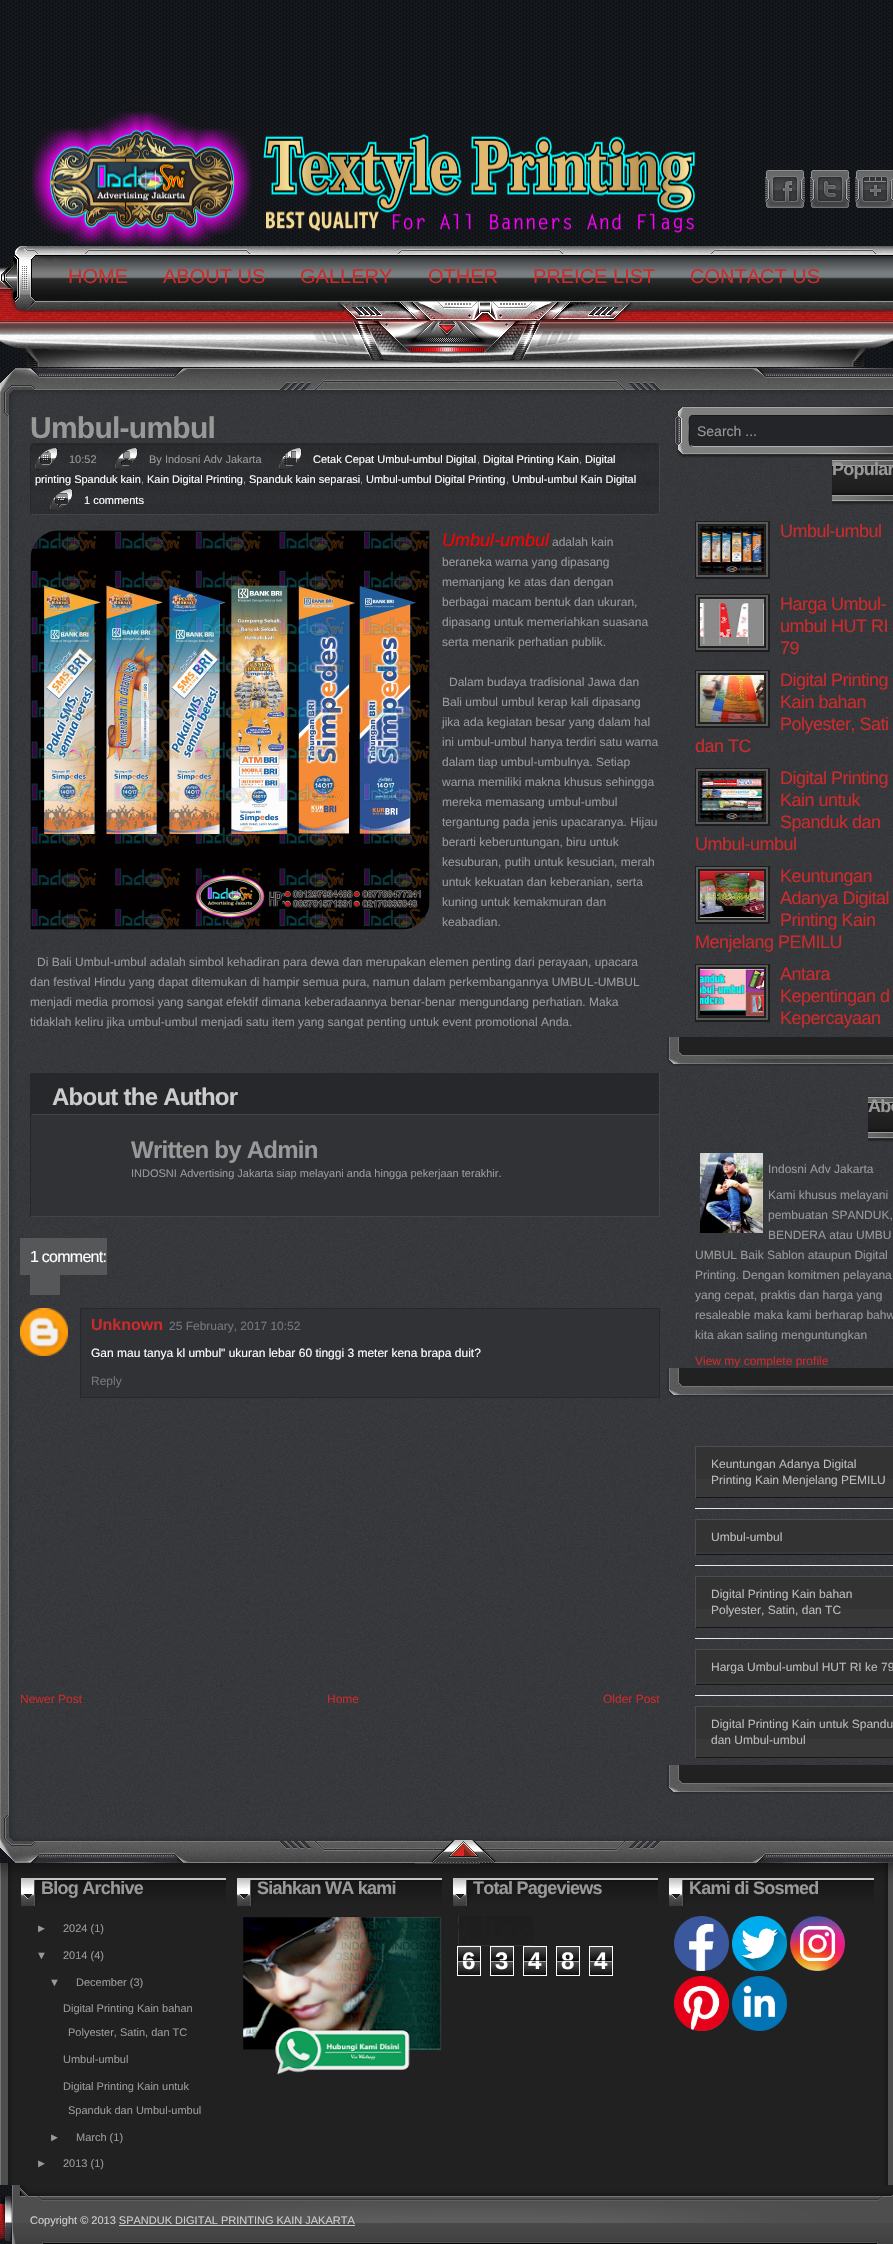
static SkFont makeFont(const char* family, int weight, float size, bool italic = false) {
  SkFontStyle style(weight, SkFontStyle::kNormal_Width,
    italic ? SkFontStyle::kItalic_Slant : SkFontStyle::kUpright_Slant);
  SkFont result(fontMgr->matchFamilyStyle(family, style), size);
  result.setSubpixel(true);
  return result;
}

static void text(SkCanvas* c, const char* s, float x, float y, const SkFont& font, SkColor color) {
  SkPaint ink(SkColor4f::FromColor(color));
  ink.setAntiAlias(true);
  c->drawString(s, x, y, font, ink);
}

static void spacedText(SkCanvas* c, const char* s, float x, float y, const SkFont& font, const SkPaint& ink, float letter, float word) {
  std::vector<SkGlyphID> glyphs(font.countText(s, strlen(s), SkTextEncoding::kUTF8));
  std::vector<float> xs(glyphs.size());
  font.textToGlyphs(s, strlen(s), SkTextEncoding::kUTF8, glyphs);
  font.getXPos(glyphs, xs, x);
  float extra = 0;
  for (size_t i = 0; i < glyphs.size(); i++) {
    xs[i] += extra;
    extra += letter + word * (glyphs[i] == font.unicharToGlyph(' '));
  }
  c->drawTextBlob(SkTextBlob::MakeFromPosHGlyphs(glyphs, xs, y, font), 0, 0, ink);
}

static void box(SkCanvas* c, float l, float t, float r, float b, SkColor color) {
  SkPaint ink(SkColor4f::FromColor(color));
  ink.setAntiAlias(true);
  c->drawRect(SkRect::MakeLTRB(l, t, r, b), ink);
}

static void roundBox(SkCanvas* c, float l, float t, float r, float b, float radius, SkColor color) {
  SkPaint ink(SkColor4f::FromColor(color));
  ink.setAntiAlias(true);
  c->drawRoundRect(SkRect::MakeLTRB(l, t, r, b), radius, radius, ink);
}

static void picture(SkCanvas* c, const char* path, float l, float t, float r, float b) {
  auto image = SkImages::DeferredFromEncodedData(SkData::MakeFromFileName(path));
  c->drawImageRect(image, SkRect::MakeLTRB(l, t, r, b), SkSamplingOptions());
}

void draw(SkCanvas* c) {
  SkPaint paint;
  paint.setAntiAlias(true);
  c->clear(0xffffffff);
  picture(c, "img_01.png", 0, 0, 893, 2244);
  picture(c, "img_02.png", 0, 267, 893, 321);
  picture(c, "img_03.png", 31, 111, 695, 246);
  picture(c, "img_04.png", 765, 170, 805, 208);
  picture(c, "img_05.png", 810, 170, 850, 208);
  picture(c, "img_06.png", 855, 170, 893, 208);
  picture(c, "img_08.png", 0, 321, 893, 367);
  picture(c, "img_09.png", 313, 321, 581, 362);
  picture(c, "img_07.png", 0, 246, 893, 323);
  SkFont face1 = makeFont("Liberation Sans", 400, 20);
  text(c, "HOME", 68, 283, face1, 0xffca2b2b);
  text(c, "ABOUT US", 163, 283, face1, 0xffca2b2b);
  text(c, "GALLERY", 300, 283, face1, 0xffca2b2b);
  text(c, "OTHER", 428, 283, face1, 0xffca2b2b);
  text(c, "PREICE LIST", 533, 283, face1, 0xffca2b2b);
  text(c, "CONTACT US", 690, 283, face1, 0xffca2b2b);
  picture(c, "img_10.png", 0, 418, 893, 1813);
  picture(c, "img_11.png", 0, 368, 893, 418);
  picture(c, "img_12.png", 0, 1813, 893, 1863);
  SkFont face2 = makeFont("Liberation Sans", 700, 30);
  paint.setColor(0xff999999);
  spacedText(c, "Umbul-umbul", 30, 438, face2, paint, -0.75f, 0);
  picture(c, "img_13.png", 30, 444, 660, 515);
  paint.setStyle(SkPaint::kStroke_Style);
  paint.setStrokeWidth(1);
  paint.setColor(0xff424449);
  c->drawPath(SkPathBuilder().moveTo(658.5f, 444.5f).cubicTo(659, 445, 659.5f, 446, 659.5f, 447).lineTo(659.5f, 511).cubicTo(659.5f, 512, 659, 513, 658.5f, 513.5f).cubicTo(658, 514, 657, 514.5f, 656, 514.5f).lineTo(34, 514.5f).cubicTo(33, 514.5f, 32, 514, 31.5f, 513.5f).detach(), paint);
  paint.setColor(0xff27282b);
  c->drawPath(SkPathBuilder().moveTo(31.5f, 513.5f).cubicTo(31, 513, 30.5f, 512, 30.5f, 511).lineTo(30.5f, 447).cubicTo(30.5f, 446, 31, 445, 31.5f, 444.5f).cubicTo(32, 444, 33, 443.5f, 34, 443.5f).lineTo(656, 443.5f).cubicTo(657, 443.5f, 658, 444, 658.5f, 444.5f).detach(), paint);
  picture(c, "img_14.png", 35, 448, 58, 470);
  SkFont face3 = makeFont("Liberation Sans", 400, 11);
  text(c, "10:52", 69, 463, face3, 0xff999999);
  picture(c, "img_15.png", 115, 448, 138, 470);
  text(c, "By Indosni Adv Jakarta", 149, 463, face3, 0xff999999);
  picture(c, "img_16.png", 279, 448, 302, 470);
  text(c, "Cetak Cepat Umbul-umbul Digital", 313, 463, face3, 0xffffffff);
  text(c, ",", 477, 463, face3, 0xff999999);
  text(c, "Digital Printing Kain", 483, 463, face3, 0xffffffff);
  text(c, ",", 579, 463, face3, 0xff999999);
  text(c, "Digital", 585, 463, face3, 0xffffffff);
  text(c, "printing Spanduk kain", 35, 483, face3, 0xffffffff);
  text(c, ",", 141, 483, face3, 0xff999999);
  text(c, "Kain Digital Printing", 147, 483, face3, 0xffffffff);
  text(c, ",", 243, 483, face3, 0xff999999);
  text(c, "Spanduk kain separasi", 249, 483, face3, 0xffffffff);
  text(c, ",", 360, 483, face3, 0xff999999);
  text(c, "Umbul-umbul Digital Printing", 366, 483, face3, 0xffffffff);
  text(c, ",", 506, 483, face3, 0xff999999);
  text(c, "Umbul-umbul Kain Digital", 512, 483, face3, 0xffffffff);
  picture(c, "img_17.png", 50, 489, 73, 511);
  text(c, "1 comments", 84, 504, face3, 0xffffffff);
  picture(c, "img_18.png", 30, 530, 430, 930);
  SkFont face4 = makeFont("Liberation Sans", 400, 18, true);
  text(c, "Umbul-umbul", 442, 546, face4, 0xffff0000);
  SkFont face5 = makeFont("Liberation Sans", 400, 12);
  text(c, "adalah kain", 552, 546, face5, 0xff999999);
  text(c, "beraneka warna yang dipasang", 442, 566, face5, 0xff999999);
  text(c, "memanjang ke atas dan dengan", 442, 586, face5, 0xff999999);
  text(c, "berbagai macam bentuk dan ukuran,", 442, 606, face5, 0xff999999);
  text(c, "dipasang untuk memeriahkan suasana", 442, 626, face5, 0xff999999);
  text(c, "serta menarik perhatian publik.", 442, 646, face5, 0xff999999);
  text(c, "Dalam budaya tradisional Jawa dan", 449, 686, face5, 0xff999999);
  text(c, "Bali umbul umbul kerap kali dipasang", 442, 706, face5, 0xff999999);
  text(c, "jika ada kegiatan besar yang dalam hal", 442, 726, face5, 0xff999999);
  text(c, "ini umbul-umbul hanya terdiri satu warna", 442, 746, face5, 0xff999999);
  text(c, "dalam tiap umbul-umbulnya. Setiap", 442, 766, face5, 0xff999999);
  text(c, "warna memiliki makna khusus sehingga", 442, 786, face5, 0xff999999);
  text(c, "mereka memasang umbul-umbul", 442, 806, face5, 0xff999999);
  text(c, "tergantung pada jenis upacaranya. Hijau", 442, 826, face5, 0xff999999);
  text(c, "berarti keberuntungan, biru untuk", 442, 846, face5, 0xff999999);
  text(c, "kesuburan, putih untuk kesucian, merah", 442, 866, face5, 0xff999999);
  text(c, "untuk kekuatan dan keberanian, serta", 442, 886, face5, 0xff999999);
  text(c, "kuning untuk kemakmuran dan", 442, 906, face5, 0xff999999);
  text(c, "keabadian.", 442, 926, face5, 0xff999999);
  text(c, "Di Bali Umbul-umbul adalah simbol kehadiran para dewa dan merupakan elemen penting dari perayaan, upacara", 37, 966, face5, 0xff999999);
  text(c, "dan festival Hindu yang dapat ditemukan di hampir semua pura, namun dalam perkembangannya UMBUL-UMBUL", 30, 986, face5, 0xff999999);
  text(c, "menjadi media promosi yang sangat efektif dimana keberadaannya benar-benar mengundang perhatian. Maka", 30, 1006, face5, 0xff999999);
  text(c, "tidaklah keliru jika umbul-umbul menjadi satu item yang sangat penting untuk event promotional Anda.", 30, 1026, face5, 0xff999999);
  box(c, 31, 1115, 659, 1216, 0xff303236);
  box(c, 659, 1073, 660, 1217, 0xff424449);
  box(c, 30, 1216, 660, 1217, 0xff424449);
  box(c, 30, 1073, 31, 1217, 0xff27282b);
  box(c, 32, 1073, 659, 1114, 0xff27282b);
  box(c, 31, 1114, 659, 1115, 0xff424449);
  box(c, 31, 1073, 32, 1115, 0xff27282b);
  SkFont face6 = makeFont("Liberation Sans", 700, 24);
  paint.setStyle(SkPaint::kFill_Style);
  paint.setColor(0xffcccccc);
  spacedText(c, "About the Author", 52, 1105, face6, paint, -0.75f, 0);
  paint.setColor(0xff999999);
  spacedText(c, "Written by Admin", 131, 1158, face6, paint, -0.75f, 0);
  text(c, "INDOSNI Advertising Jakarta siap melayani anda hingga pekerjaan terakhir.", 131, 1177, face3, 0xff999999);
  box(c, 20, 1238, 107, 1275, 0xff565759);
  SkFont face7 = makeFont("Liberation Sans", 400, 16);
  paint.setColor(0xffffffff);
  spacedText(c, "1 comment:", 30, 1262, face7, paint, -0.75f, 0);
  box(c, 30, 1275, 60, 1295, 0xff565759);
  picture(c, "img_19.png", 20, 1308, 68, 1356);
  paint.setColor(0xff303236);
  c->drawRect(SkRect::MakeLTRB(80.5f, 1308.5f, 659.5f, 1397.5f), paint);
  paint.setStyle(SkPaint::kStroke_Style);
  paint.setColor(0xff27282b);
  c->drawRect(SkRect::MakeLTRB(80.5f, 1308.5f, 659.5f, 1397.5f), paint);
  SkFont face8 = makeFont("Liberation Sans", 700, 16);
  text(c, "Unknown", 91, 1330, face8, 0xffca2b2b);
  text(c, "25 February, 2017 10:52", 169, 1330, face5, 0xff777777);
  text(c, "Gan mau tanya kl umbul\" ukuran lebar 60 tinggi 3 meter kena brapa duit?", 91, 1357, face5, 0xffffffff);
  text(c, "Reply", 91, 1385, face5, 0xff777777);
  text(c, "Newer Post", 20, 1703, face5, 0xffca2b2b);
  text(c, "Home", 327, 1703, face5, 0xffca2b2b);
  text(c, "Older Post", 603, 1703, face5, 0xffca2b2b);
  picture(c, "img_20.png", 674, 406, 893, 458);
  roundBox(c, 689, 415, 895, 447, 4, 0xff242528);
  paint.setColor(0xffb0b0b0);
  c->drawPath(SkPathBuilder().moveTo(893.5f, 416.5f).cubicTo(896, 419, 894.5f, 431.5f, 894.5f, 435).cubicTo(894.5f, 437.5f, 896.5f, 446.5f, 891, 446.5f).lineTo(693, 446.5f).lineTo(690.5f, 445.5f).detach(), paint);
  paint.setColor(0xff161718);
  c->drawPath(SkPathBuilder().moveTo(690.5f, 445.5f).cubicTo(688, 443, 689.5f, 430.5f, 689.5f, 427).cubicTo(689.5f, 424.5f, 687.5f, 415.5f, 693, 415.5f).lineTo(891, 415.5f).lineTo(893.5f, 416.5f).detach(), paint);
  SkFont face9 = makeFont("Liberation Sans", 400, 14);
  text(c, "Search ...", 697, 436, face9, 0xff999999);
  picture(c, "img_21.png", 665, 1037, 893, 1070);
  picture(c, "img_22.png", 832, 459, 893, 505);
  SkFont face10 = makeFont("Liberation Sans", 700, 18);
  paint.setStyle(SkPaint::kFill_Style);
  paint.setColor(0xff999999);
  spacedText(c, "Popular", 832, 475, face10, paint, -0.75f, 0);
  picture(c, "img_23.png", 695, 521, 770, 579);
  paint.setStyle(SkPaint::kStroke_Style);
  paint.setColor(0xff1d1d1d);
  c->drawRect(SkRect::MakeLTRB(695.5f, 521.5f, 768.5f, 577.5f), paint);
  picture(c, "img_24.png", 700, 526, 764, 573);
  SkFont face11 = makeFont("Liberation Sans", 400, 18);
  paint.setStyle(SkPaint::kFill_Style);
  paint.setColor(0xffca2b2b);
  spacedText(c, "Umbul-umbul", 780, 537, face11, paint, -0.5f, 0);
  picture(c, "img_23.png", 695, 594, 770, 652);
  paint.setStyle(SkPaint::kStroke_Style);
  paint.setColor(0xff1d1d1d);
  c->drawRect(SkRect::MakeLTRB(695.5f, 594.5f, 768.5f, 650.5f), paint);
  picture(c, "img_25.png", 700, 599, 764, 646);
  paint.setStyle(SkPaint::kFill_Style);
  paint.setColor(0xffca2b2b);
  spacedText(c, "Harga Umbul-", 780, 610, face11, paint, -0.5f, 0);
  spacedText(c, "umbul HUT RI", 780, 632, face11, paint, -0.5f, 0);
  spacedText(c, "79", 780, 654, face11, paint, -0.5f, 0);
  picture(c, "img_23.png", 695, 670, 770, 728);
  paint.setStyle(SkPaint::kStroke_Style);
  paint.setColor(0xff1d1d1d);
  c->drawRect(SkRect::MakeLTRB(695.5f, 670.5f, 768.5f, 726.5f), paint);
  picture(c, "img_26.png", 700, 675, 764, 722);
  paint.setStyle(SkPaint::kFill_Style);
  paint.setColor(0xffca2b2b);
  spacedText(c, "Digital Printing", 780, 686, face11, paint, -0.5f, 0);
  spacedText(c, "Kain bahan", 780, 708, face11, paint, -0.5f, 0);
  spacedText(c, "Polyester, Sati", 780, 730, face11, paint, -0.5f, 0);
  spacedText(c, "dan TC", 695, 752, face11, paint, -0.5f, 0);
  picture(c, "img_23.png", 695, 768, 770, 826);
  paint.setStyle(SkPaint::kStroke_Style);
  paint.setColor(0xff1d1d1d);
  c->drawRect(SkRect::MakeLTRB(695.5f, 768.5f, 768.5f, 824.5f), paint);
  picture(c, "img_27.png", 700, 773, 764, 820);
  paint.setStyle(SkPaint::kFill_Style);
  paint.setColor(0xffca2b2b);
  spacedText(c, "Digital Printing", 780, 784, face11, paint, -0.5f, 0);
  spacedText(c, "Kain untuk", 780, 806, face11, paint, -0.5f, 0);
  spacedText(c, "Spanduk dan", 780, 828, face11, paint, -0.5f, 0);
  spacedText(c, "Umbul-umbul", 695, 850, face11, paint, -0.5f, 0);
  picture(c, "img_23.png", 695, 866, 770, 924);
  paint.setStyle(SkPaint::kStroke_Style);
  paint.setColor(0xff1d1d1d);
  c->drawRect(SkRect::MakeLTRB(695.5f, 866.5f, 768.5f, 922.5f), paint);
  picture(c, "img_28.png", 700, 871, 764, 918);
  paint.setStyle(SkPaint::kFill_Style);
  paint.setColor(0xffca2b2b);
  spacedText(c, "Keuntungan", 780, 882, face11, paint, -0.5f, 0);
  spacedText(c, "Adanya Digital", 780, 904, face11, paint, -0.5f, 0);
  spacedText(c, "Printing Kain", 780, 926, face11, paint, -0.5f, 0);
  spacedText(c, "Menjelang PEMILU", 695, 948, face11, paint, -0.5f, 0);
  picture(c, "img_23.png", 695, 964, 770, 1022);
  paint.setStyle(SkPaint::kStroke_Style);
  paint.setColor(0xff1d1d1d);
  c->drawRect(SkRect::MakeLTRB(695.5f, 964.5f, 768.5f, 1020.5f), paint);
  picture(c, "img_29.png", 700, 969, 764, 1016);
  paint.setStyle(SkPaint::kFill_Style);
  paint.setColor(0xffca2b2b);
  spacedText(c, "Antara", 780, 980, face11, paint, -0.5f, 0);
  spacedText(c, "Kepentingan d", 780, 1002, face11, paint, -0.5f, 0);
  spacedText(c, "Kepercayaan", 780, 1024, face11, paint, -0.5f, 0);
  picture(c, "img_21.png", 665, 1368, 893, 1401);
  picture(c, "img_30.png", 868, 1096, 893, 1142);
  paint.setColor(0xff999999);
  spacedText(c, "Abo", 868, 1112, face10, paint, -0.75f, 0);
  picture(c, "img_31.png", 700, 1153, 763, 1233);
  text(c, "Indosni Adv Jakarta", 768, 1173, face5, 0xff999999);
  text(c, "Kami khusus melayani", 768, 1199, face5, 0xff999999);
  text(c, "pembuatan SPANDUK,", 768, 1219, face5, 0xff999999);
  text(c, "BENDERA atau UMBU", 768, 1239, face5, 0xff999999);
  text(c, "UMBUL Baik Sablon ataupun Digital", 695, 1259, face5, 0xff999999);
  text(c, "Printing. Dengan komitmen pelayana", 695, 1279, face5, 0xff999999);
  text(c, "yang cepat, praktis dan harga yang", 695, 1299, face5, 0xff999999);
  text(c, "resaleable maka kami berharap bahw", 695, 1319, face5, 0xff999999);
  text(c, "kita akan saling menguntungkan", 695, 1339, face5, 0xff999999);
  text(c, "View my complete profile", 695, 1365, face5, 0xffca2b2b);
  picture(c, "img_21.png", 665, 1765, 893, 1798);
  box(c, 695, 1508, 893, 1509, 0xffe3e3e3);
  box(c, 696, 1447, 893, 1479, 0xff333333);
  box(c, 696, 1479, 893, 1497, 0xff383838);
  box(c, 695, 1446, 893, 1447, 0xff4d4d4d);
  box(c, 695, 1497, 893, 1498, 0xff171717);
  box(c, 695, 1446, 696, 1498, 0xff4d4d4d);
  text(c, "Keuntungan Adanya Digital", 711, 1468, face5, 0xffbbbbbb);
  text(c, "Printing Kain Menjelang PEMILU", 711, 1484, face5, 0xffbbbbbb);
  box(c, 695, 1565, 893, 1566, 0xffe3e3e3);
  box(c, 696, 1520, 893, 1552, 0xff333333);
  box(c, 695, 1552, 893, 1554, 0xff383838);
  box(c, 695, 1519, 893, 1520, 0xff4d4d4d);
  box(c, 695, 1554, 893, 1555, 0xff171717);
  box(c, 695, 1519, 696, 1555, 0xff4d4d4d);
  text(c, "Umbul-umbul", 711, 1541, face5, 0xffbbbbbb);
  box(c, 695, 1638, 893, 1639, 0xffe3e3e3);
  box(c, 696, 1577, 893, 1609, 0xff333333);
  box(c, 696, 1609, 893, 1627, 0xff383838);
  box(c, 695, 1576, 893, 1577, 0xff4d4d4d);
  box(c, 695, 1627, 893, 1628, 0xff171717);
  box(c, 695, 1576, 696, 1628, 0xff4d4d4d);
  text(c, "Digital Printing Kain bahan", 711, 1598, face5, 0xffbbbbbb);
  text(c, "Polyester, Satin, dan TC", 711, 1614, face5, 0xffbbbbbb);
  box(c, 695, 1695, 893, 1696, 0xffe3e3e3);
  box(c, 696, 1650, 893, 1682, 0xff333333);
  box(c, 695, 1682, 893, 1684, 0xff383838);
  box(c, 695, 1649, 893, 1650, 0xff4d4d4d);
  box(c, 695, 1684, 893, 1685, 0xff171717);
  box(c, 695, 1649, 696, 1685, 0xff4d4d4d);
  text(c, "Harga Umbul-umbul HUT RI ke 79", 711, 1671, face5, 0xffbbbbbb);
  box(c, 696, 1707, 893, 1739, 0xff333333);
  box(c, 696, 1739, 893, 1757, 0xff383838);
  box(c, 695, 1706, 893, 1707, 0xff4d4d4d);
  box(c, 695, 1757, 893, 1758, 0xff171717);
  box(c, 695, 1706, 696, 1758, 0xff4d4d4d);
  text(c, "Digital Printing Kain untuk Spandu", 711, 1728, face5, 0xffbbbbbb);
  text(c, "dan Umbul-umbul", 711, 1744, face5, 0xffbbbbbb);
  picture(c, "img_32.png", 430, 1840, 497, 1863);
  picture(c, "img_33.png", 0, 2204, 5, 2239);
  picture(c, "img_34.png", 0, 1863, 893, 2185);
  picture(c, "img_35.png", 21, 1878, 226, 1906);
  spacedText(c, "Blog Archive", 41, 1894, face10, paint, -0.75f, 0);
  text(c, "►", 36, 1932, face3, 0xff999999);
  text(c, "2024 (1)", 63, 1932, face3, 0xff999999);
  text(c, "▼", 36, 1959, face3, 0xff999999);
  text(c, "2014 (4)", 63, 1959, face3, 0xff999999);
  text(c, "▼", 49, 1986, face3, 0xff999999);
  text(c, "December (3)", 76, 1986, face3, 0xff999999);
  text(c, "Digital Printing Kain bahan", 63, 2012, face3, 0xff999999);
  text(c, "Polyester, Satin, dan TC", 68, 2036, face3, 0xff999999);
  text(c, "Umbul-umbul", 63, 2063, face3, 0xff999999);
  text(c, "Digital Printing Kain untuk", 63, 2090, face3, 0xff999999);
  text(c, "Spanduk dan Umbul-umbul", 68, 2114, face3, 0xff999999);
  text(c, "►", 49, 2141, face3, 0xff999999);
  text(c, "March (1)", 76, 2141, face3, 0xff999999);
  text(c, "►", 36, 2167, face3, 0xff999999);
  text(c, "2013 (1)", 63, 2167, face3, 0xff999999);
  picture(c, "img_35.png", 237, 1878, 442, 1906);
  spacedText(c, "Siahkan WA kami", 257, 1894, face10, paint, -0.75f, 0);
  picture(c, "img_36.png", 243, 1916, 442, 2075);
  picture(c, "img_35.png", 453, 1878, 658, 1906);
  spacedText(c, "Total Pageviews", 473, 1894, face10, paint, -0.75f, 0);
  picture(c, "img_37.png", 458, 1916, 533, 1946);
  picture(c, "img_38.png", 458, 1947, 480, 1975);
  paint.setStyle(SkPaint::kStroke_Style);
  paint.setColor(0xffffffff);
  c->drawRect(SkRect::MakeLTRB(457.5f, 1946.5f, 480.5f, 1975.5f), paint);
  text(c, "6", 462, 1969, face6, 0xffffffff);
  box(c, 458, 1960, 480, 1961, 0xa6000000);
  box(c, 458, 1961, 480, 1962, 0xa6ffffff);
  picture(c, "img_38.png", 491, 1947, 513, 1975);
  c->drawRect(SkRect::MakeLTRB(490.5f, 1946.5f, 513.5f, 1975.5f), paint);
  text(c, "3", 495, 1969, face6, 0xffffffff);
  box(c, 491, 1960, 513, 1961, 0xa6000000);
  box(c, 491, 1961, 513, 1962, 0xa6ffffff);
  picture(c, "img_38.png", 524, 1947, 546, 1975);
  c->drawRect(SkRect::MakeLTRB(523.5f, 1946.5f, 546.5f, 1975.5f), paint);
  text(c, "4", 528, 1969, face6, 0xffffffff);
  box(c, 524, 1960, 546, 1961, 0xa6000000);
  box(c, 524, 1961, 546, 1962, 0xa6ffffff);
  picture(c, "img_38.png", 557, 1947, 579, 1975);
  c->drawRect(SkRect::MakeLTRB(556.5f, 1946.5f, 579.5f, 1975.5f), paint);
  text(c, "8", 561, 1969, face6, 0xffffffff);
  box(c, 557, 1960, 579, 1961, 0xa6000000);
  box(c, 557, 1961, 579, 1962, 0xa6ffffff);
  picture(c, "img_38.png", 590, 1947, 612, 1975);
  c->drawRect(SkRect::MakeLTRB(589.5f, 1946.5f, 612.5f, 1975.5f), paint);
  text(c, "4", 594, 1969, face6, 0xffffffff);
  box(c, 590, 1960, 612, 1961, 0xa6000000);
  box(c, 590, 1961, 612, 1962, 0xa6ffffff);
  picture(c, "img_35.png", 669, 1878, 874, 1906);
  paint.setStyle(SkPaint::kFill_Style);
  paint.setColor(0xff999999);
  spacedText(c, "Kami di Sosmed", 689, 1894, face10, paint, -0.75f, 0);
  picture(c, "img_39.png", 674, 1916, 729, 1971);
  picture(c, "img_40.png", 732, 1916, 787, 1971);
  picture(c, "img_41.png", 790, 1916, 845, 1971);
  picture(c, "img_42.png", 674, 1976, 729, 2031);
  picture(c, "img_43.png", 732, 1976, 787, 2031);
  picture(c, "img_44.png", 0, 2185, 893, 2244);
  text(c, "Copyright © 2013 SPANDUK DIGITAL PRINTING KAIN JAKARTA", 30, 2224, face3, 0xffcccccc);
  box(c, 119, 2225, 355, 2226, 0xffcccccc);
}
